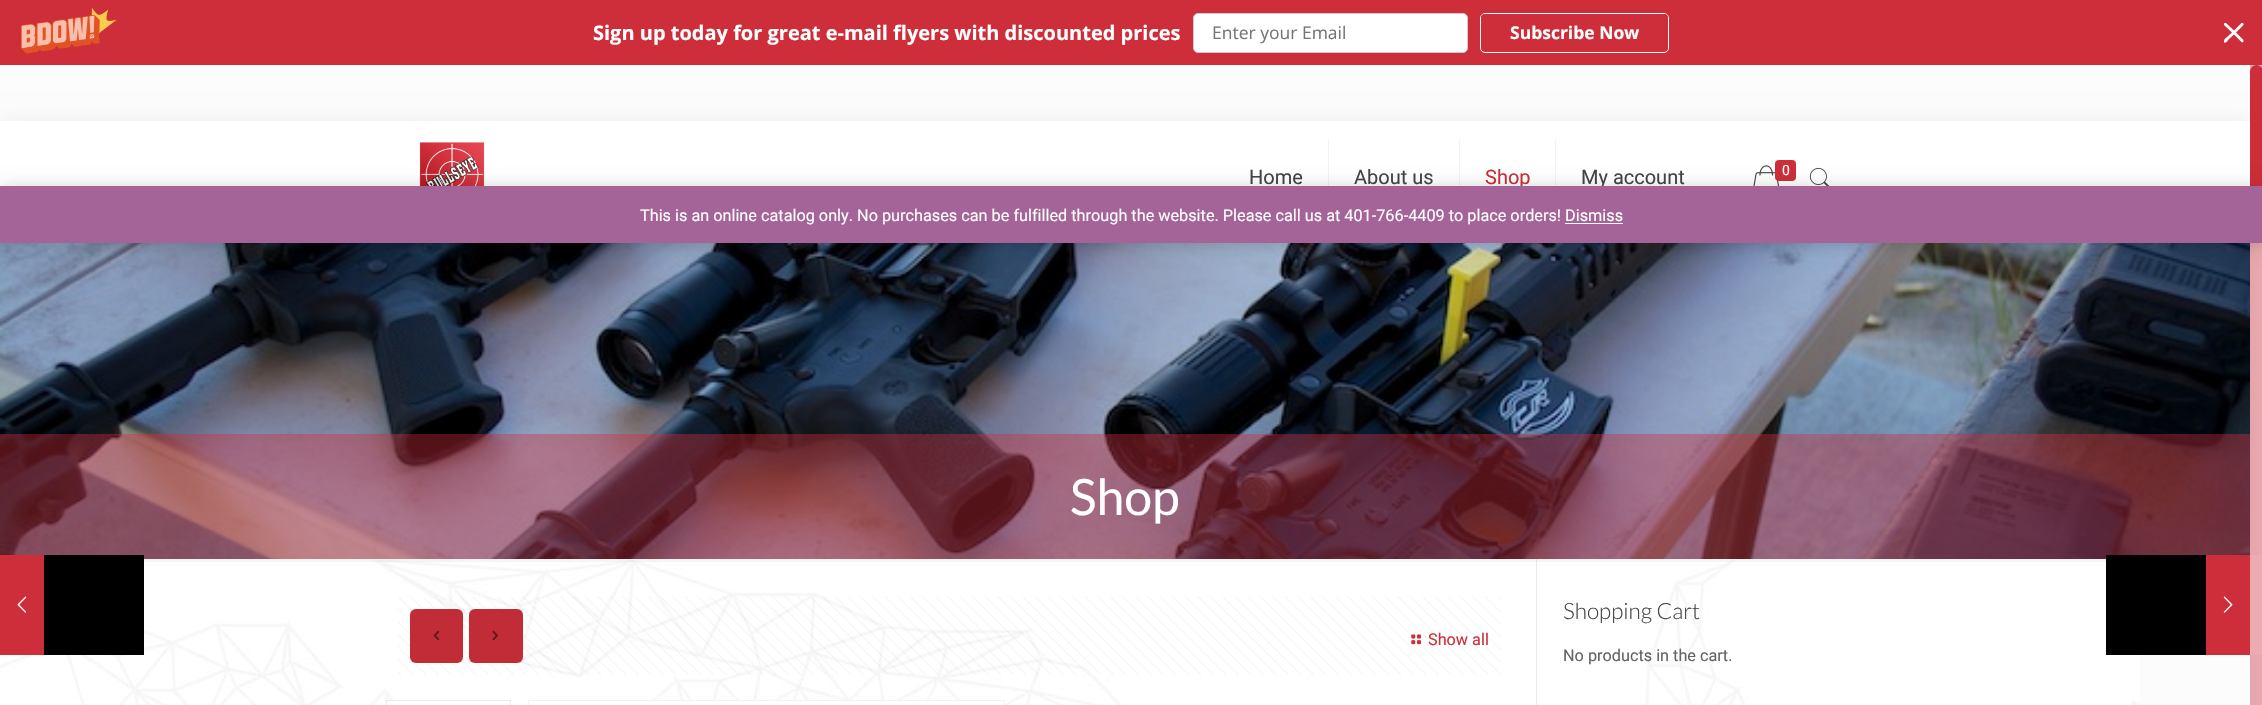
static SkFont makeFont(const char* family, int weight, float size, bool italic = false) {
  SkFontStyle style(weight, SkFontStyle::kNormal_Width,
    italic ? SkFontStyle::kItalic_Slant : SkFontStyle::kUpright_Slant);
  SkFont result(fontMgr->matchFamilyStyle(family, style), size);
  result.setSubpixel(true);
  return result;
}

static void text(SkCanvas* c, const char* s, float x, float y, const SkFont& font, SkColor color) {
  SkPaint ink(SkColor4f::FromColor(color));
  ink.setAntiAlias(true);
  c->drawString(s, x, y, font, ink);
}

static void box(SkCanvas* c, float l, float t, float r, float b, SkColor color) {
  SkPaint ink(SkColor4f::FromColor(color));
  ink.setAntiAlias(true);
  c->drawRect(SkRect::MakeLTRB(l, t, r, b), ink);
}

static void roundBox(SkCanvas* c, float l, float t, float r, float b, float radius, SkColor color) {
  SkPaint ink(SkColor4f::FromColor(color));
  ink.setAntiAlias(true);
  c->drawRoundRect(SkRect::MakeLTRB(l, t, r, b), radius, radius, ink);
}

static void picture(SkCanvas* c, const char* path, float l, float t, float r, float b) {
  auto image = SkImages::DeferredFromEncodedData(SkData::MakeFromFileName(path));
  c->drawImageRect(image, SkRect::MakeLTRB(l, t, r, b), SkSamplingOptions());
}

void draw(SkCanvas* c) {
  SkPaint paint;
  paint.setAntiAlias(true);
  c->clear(0xfffcfcfc);
  box(c, 0, 0, 2262, 65, 0xffcd2e39);
  picture(c, "img_01.png", 21, 7, 117, 54);
  SkFont face1 = makeFont("Open Sans", 700, 20);
  text(c, "Sign up today for great e-mail flyers with discounted prices", 593, 40, face1, 0xffffffff);
  paint.setColor(0xffffffff);
  c->drawRoundRect(SkRect::MakeLTRB(1193.5f, 13.5f, 1467.5f, 52.5f), 4.5f, 4.5f, paint);
  paint.setStyle(SkPaint::kStroke_Style);
  paint.setStrokeWidth(1);
  paint.setColor(0xffcccccc);
  c->drawRoundRect(SkRect::MakeLTRB(1193.5f, 13.5f, 1467.5f, 52.5f), 4.5f, 4.5f, paint);
  SkFont face2 = makeFont("Open Sans", 400, 17.5f);
  text(c, "Enter your Email", 1212, 39, face2, 0xff757575);
  paint.setColor(0xffffffff);
  c->drawRoundRect(SkRect::MakeLTRB(1480.5f, 13.5f, 1668.5f, 52.5f), 4.5f, 4.5f, paint);
  roundBox(c, 1481, 14, 1668, 51, 4, 0xffcd2e39);
  SkFont face3 = makeFont("Open Sans", 700, 17.5f);
  text(c, "Subscribe Now", 1510, 39, face3, 0xffffffff);
  c->save();
  c->clipRect(SkRect::MakeLTRB(2224, 23, 2244, 43));
  paint.setStyle(SkPaint::kFill_Style);
  c->drawPath(SkPathBuilder().moveTo(2234, 30.5f).lineTo(2241.5f, 23).cubicTo(2242, 22.5f, 2242.5f, 22.5f, 2243, 23).cubicTo(2243.5f, 23.5f, 2243.5f, 24.5f, 2243.5f, 25).lineTo(2236, 32.5f).lineTo(2243.5f, 40).cubicTo(2243.5f, 40.5f, 2243.5f, 41.5f, 2243, 42).cubicTo(2242.5f, 42.5f, 2242, 42.5f, 2241.5f, 42).lineTo(2234, 34.5f).lineTo(2228.5f, 39.5f).cubicTo(2228, 40.5f, 2226, 43.5f, 2224, 42.5f).cubicTo(2222, 41, 2226, 38, 2226.5f, 37.5f).lineTo(2232, 32.5f).lineTo(2224, 25).cubicTo(2224, 24.5f, 2224, 23.5f, 2224.5f, 23).cubicTo(2225, 22.5f, 2225.5f, 22.5f, 2226, 23).close().detach(), paint);
  c->restore();
  paint.setColor(0x0f000000);
  paint.setMaskFilter(SkMaskFilter::MakeBlur(kNormal_SkBlurStyle, 9.5f));
  c->drawRect(SkRect::MakeLTRB(0, 121, 2250, 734), paint);
  paint.setMaskFilter(nullptr);
  picture(c, "img_02.png", 0, 243, 2250, 559);
  box(c, 0, 121, 2250, 186, 0xffffffff);
  picture(c, "img_03.png", 419, 142, 485, 186);
  box(c, 1328, 140, 1329, 186, 0xfff2f2f2);
  SkFont face4 = makeFont("Roboto", 400, 20);
  text(c, "Home", 1249, 184, face4, 0xff444444);
  box(c, 1459, 140, 1460, 186, 0xfff2f2f2);
  text(c, "About us", 1354, 184, face4, 0xff444444);
  box(c, 1555, 140, 1556, 186, 0xfff2f2f2);
  text(c, "Shop", 1485, 184, face4, 0xffcd2e39);
  text(c, "My account", 1581, 184, face4, 0xff444444);
  picture(c, "img_04.png", 1753, 165, 1779, 186);
  roundBox(c, 1775, 160, 1796, 181, 4, 0xffcd2e39);
  SkFont face5 = makeFont("Roboto", 400, 14);
  text(c, "0", 1782, 175, face5, 0xffffffff);
  picture(c, "img_05.png", 1809, 167, 1830, 186);
  box(c, 0, 434, 2250, 559, 0x66cd2e39);
  SkFont face6 = makeFont("Lato", 400, 50);
  text(c, "Shop", 1070, 515, face6, 0xffffffff);
  box(c, 144, 559, 2250, 705, 0xfffcfcfc);
  picture(c, "img_06.png", 0, 560, 2140, 705);
  box(c, 1536, 559, 1537, 705, 0x14000000);
  box(c, 144, 559, 2106, 562, 0x0a000000);
  picture(c, "img_07.png", 398, 596, 1501, 675);
  roundBox(c, 410, 609, 463, 663, 6, 0xffcd2e39);
  box(c, 410, 609, 463, 663, 0x0d000000);
  picture(c, "img_08.png", 433, 630, 440, 641);
  roundBox(c, 469, 609, 523, 663, 6, 0xffcd2e39);
  box(c, 469, 609, 523, 663, 0x0d000000);
  picture(c, "img_09.png", 492, 630, 498, 641);
  picture(c, "img_10.png", 1411, 634, 1421, 645);
  SkFont face7 = makeFont("Roboto", 400, 16.25f);
  text(c, "Show all", 1428, 645, face7, 0xffcd2e39);
  box(c, 386, 701, 398, 705, 0xffffffff);
  paint.setStyle(SkPaint::kStroke_Style);
  paint.setColor(0xffebebeb);
  c->drawRect(SkRect::MakeLTRB(386.5f, 700.5f, 510.5f, 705.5f), paint);
  paint.setColor(0xfff2f2f2);
  c->drawRect(SkRect::MakeLTRB(528.5f, 700.5f, 1004.5f, 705.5f), paint);
  box(c, 647, 701, 1004, 705, 0xffffffff);
  SkFont face8 = makeFont("Lato", 300, 22.5f);
  text(c, "Shopping Cart", 1563, 619, face8, 0xff444444);
  text(c, "No products in the cart.", 1563, 661, face7, 0xff626262);
  box(c, 2250, 555, 2262, 655, 0xffffffff);
  box(c, 2250, 65, 2262, 705, 0x66cd2e39);
  roundBox(c, 2250, 65, 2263, 230, 6.5f, 0xffcd2e39);
  paint.setStyle(SkPaint::kFill_Style);
  paint.setColor(0x33000000);
  paint.setMaskFilter(SkMaskFilter::MakeBlur(kNormal_SkBlurStyle, 8));
  c->drawRect(SkRect::MakeLTRB(0, 188, 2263, 244), paint);
  paint.setMaskFilter(nullptr);
  box(c, 0, 186, 2262, 243, 0xffa46497);
  text(c, "This is an online catalog only. No purchases can be fulfilled through the website. Please call us at 401-766-4409 to place orders! Dismiss", 640, 221, face7, 0xffffffff);
  box(c, 1565, 223, 1623, 224, 0xffffffff);
  box(c, 0, 555, 44, 655, 0xffcd2e39);
  picture(c, "img_11.png", 17, 596, 27, 613);
  box(c, 44, 555, 144, 655, 0xff000000);
  box(c, 2106, 555, 2206, 655, 0xff000000);
  box(c, 2206, 555, 2250, 655, 0xffcd2e39);
  picture(c, "img_12.png", 2223, 596, 2233, 613);
}
